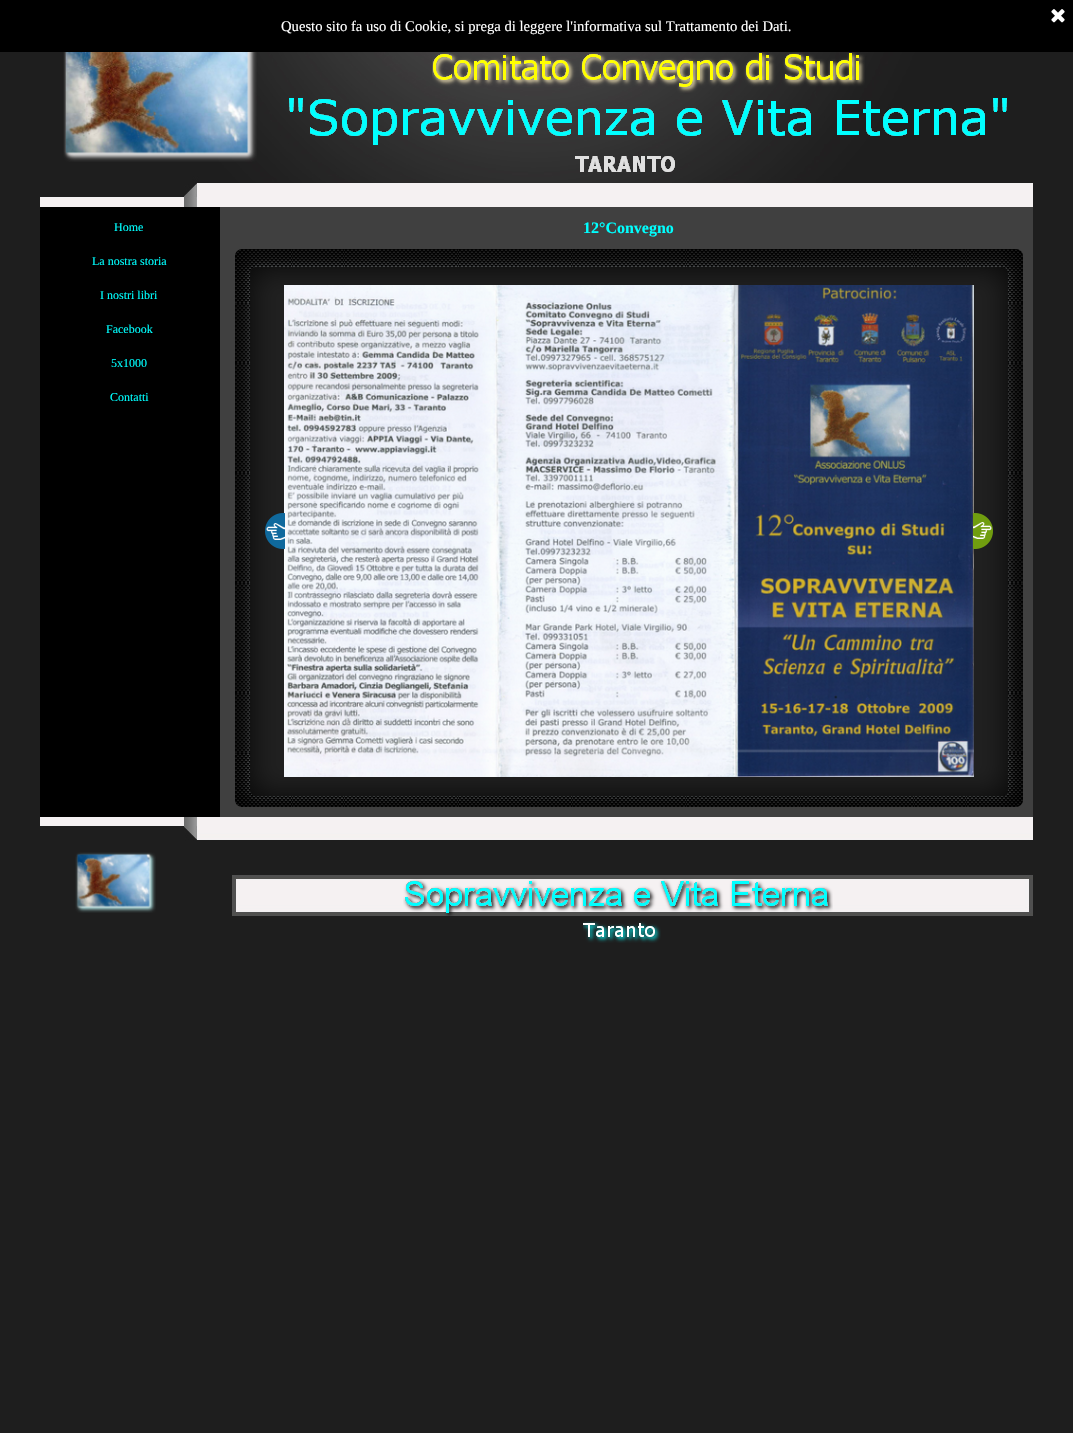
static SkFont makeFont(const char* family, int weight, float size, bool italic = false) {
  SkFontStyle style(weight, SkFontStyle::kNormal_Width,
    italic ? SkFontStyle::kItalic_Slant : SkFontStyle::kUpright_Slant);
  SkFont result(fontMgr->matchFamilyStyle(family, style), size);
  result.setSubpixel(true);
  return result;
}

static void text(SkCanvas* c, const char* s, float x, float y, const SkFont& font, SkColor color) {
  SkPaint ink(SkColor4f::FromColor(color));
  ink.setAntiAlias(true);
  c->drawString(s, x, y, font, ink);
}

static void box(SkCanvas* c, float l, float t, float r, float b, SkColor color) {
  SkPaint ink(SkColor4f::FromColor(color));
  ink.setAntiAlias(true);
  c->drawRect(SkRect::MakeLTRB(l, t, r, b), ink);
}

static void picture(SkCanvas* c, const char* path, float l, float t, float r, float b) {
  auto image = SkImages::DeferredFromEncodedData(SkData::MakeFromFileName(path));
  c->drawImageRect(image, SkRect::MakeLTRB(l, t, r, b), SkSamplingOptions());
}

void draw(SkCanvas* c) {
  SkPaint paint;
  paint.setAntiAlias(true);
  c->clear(0xff1e1e1e);
  box(c, 0, 0, 1073, 52, 0xff000000);
  picture(c, "img_01.png", 1051, 9, 1065, 23);
  SkFont face1 = makeFont("Liberation Serif", 400, 14.65f);
  text(c, "Questo sito fa uso di Cookie, si prega di leggere l'informativa sul Trattamento dei Dati.", 281, 31, face1, 0xffffffff);
  picture(c, "img_02.png", 40, 52, 1033, 207);
  picture(c, "img_03.png", 63, 52, 257, 162);
  picture(c, "img_04.png", 432, 52, 865, 93);
  picture(c, "img_05.png", 289, 98, 1007, 145);
  picture(c, "img_06.png", 575, 156, 675, 172);
  box(c, 220, 207, 1033, 817, 0xff404040);
  box(c, 40, 207, 220, 817, 0xff000000);
  SkFont face2 = makeFont("Liberation Serif", 400, 12);
  text(c, "Home", 114, 231, face2, 0xff00ffff);
  text(c, "La nostra storia", 92, 265, face2, 0xff00ffff);
  text(c, "I nostri libri", 100, 299, face2, 0xff00ffff);
  text(c, "Facebook", 106, 333, face2, 0xff00ffff);
  text(c, "5x1000", 111, 367, face2, 0xff00ffff);
  text(c, "Contatti", 110, 401, face2, 0xff00ffff);
  SkFont face3 = makeFont("Liberation Serif", 700, 16);
  text(c, "12°Convegno", 583, 233, face3, 0xff00ffff);
  picture(c, "img_07.png", 235, 249, 292, 303);
  picture(c, "img_08.png", 292, 249, 966, 285);
  picture(c, "img_09.png", 966, 249, 1023, 303);
  picture(c, "img_10.png", 235, 303, 284, 753);
  picture(c, "img_11.png", 974, 303, 1023, 753);
  picture(c, "img_12.png", 235, 753, 292, 807);
  picture(c, "img_13.png", 292, 777, 966, 807);
  picture(c, "img_14.png", 966, 753, 1023, 807);
  picture(c, "img_16.png", 284, 285, 974, 777);
  picture(c, "img_15.png", 265, 513, 285, 549);
  picture(c, "img_17.png", 973, 513, 993, 549);
  picture(c, "img_18.png", 40, 817, 1033, 916);
  picture(c, "img_19.png", 75, 852, 156, 913);
  picture(c, "img_20.png", 403, 879, 833, 916);
  picture(c, "img_21.png", 583, 921, 661, 943);
}
